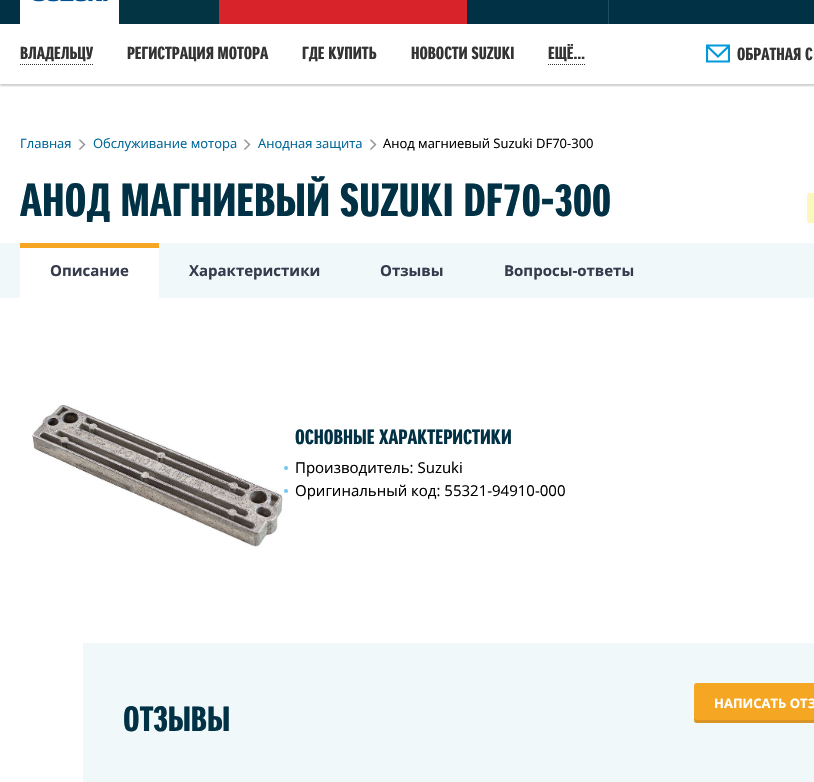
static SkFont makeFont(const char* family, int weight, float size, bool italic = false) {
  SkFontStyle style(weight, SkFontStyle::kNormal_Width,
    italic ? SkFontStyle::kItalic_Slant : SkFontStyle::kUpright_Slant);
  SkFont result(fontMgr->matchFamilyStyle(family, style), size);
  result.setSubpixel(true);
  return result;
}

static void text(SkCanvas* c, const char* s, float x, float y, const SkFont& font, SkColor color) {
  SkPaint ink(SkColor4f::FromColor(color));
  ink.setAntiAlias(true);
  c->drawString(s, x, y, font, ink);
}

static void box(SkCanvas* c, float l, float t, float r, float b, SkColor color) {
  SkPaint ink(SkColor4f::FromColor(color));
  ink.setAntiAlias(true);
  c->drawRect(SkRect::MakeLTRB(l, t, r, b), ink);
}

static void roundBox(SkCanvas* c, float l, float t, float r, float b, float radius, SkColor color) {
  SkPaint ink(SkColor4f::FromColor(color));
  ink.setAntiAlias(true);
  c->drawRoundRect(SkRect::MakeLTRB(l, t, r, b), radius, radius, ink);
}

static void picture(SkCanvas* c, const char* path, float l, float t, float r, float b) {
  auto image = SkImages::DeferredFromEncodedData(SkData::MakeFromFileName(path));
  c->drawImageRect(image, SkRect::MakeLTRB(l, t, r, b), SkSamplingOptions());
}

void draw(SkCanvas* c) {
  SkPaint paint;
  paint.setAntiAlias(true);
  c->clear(0xffffffff);
  box(c, 0, 0, 814, 24, 0xff003145);
  picture(c, "img_01.png", 20, 0, 119, 24);
  box(c, 119, 0, 219, 24, 0xff023444);
  box(c, 219, 0, 467, 24, 0xffd8232a);
  box(c, 608, 0, 609, 24, 0xff1a4e62);
  c->save();
  c->clipRect(SkRect::MakeLTRB(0, 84, 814, 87));
  paint.setColor(0x33000000);
  paint.setMaskFilter(SkMaskFilter::MakeBlur(kNormal_SkBlurStyle, 1));
  c->drawRect(SkRect::MakeLTRB(0, 26, 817, 86), paint);
  paint.setMaskFilter(nullptr);
  c->restore();
  SkFont face1 = makeFont("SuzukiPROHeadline", 700, 17);
  text(c, "ВЛАДЕЛЬЦУ", 20, 59, face1, 0xff333333);
  paint.setStyle(SkPaint::kStroke_Style);
  paint.setStrokeWidth(1);
  paint.setColor(0xff333333);
  paint.setPathEffect(SkDashPathEffect::Make({{1, 1}}, 0));
  c->drawPath(SkPathBuilder().moveTo(20, 64.5f).lineTo(93, 64.5f).detach(), paint);
  paint.setPathEffect(nullptr);
  text(c, "РЕГИСТРАЦИЯ МОТОРА", 127, 59, face1, 0xff333333);
  text(c, "ГДЕ КУПИТЬ", 302, 59, face1, 0xff333333);
  text(c, "НОВОСТИ SUZUKI", 411, 59, face1, 0xff333333);
  text(c, "ЕЩЁ…", 548, 59, face1, 0xff333333);
  paint.setPathEffect(SkDashPathEffect::Make({{1, 1}}, 0));
  c->drawPath(SkPathBuilder().moveTo(548, 64.5f).lineTo(585, 64.5f).detach(), paint);
  paint.setPathEffect(nullptr);
  c->save();
  c->clipRect(SkRect::MakeLTRB(706, 44, 730, 63));
  paint.setStrokeWidth(2.2f);
  paint.setColor(0xff009ada);
  c->drawPath(SkPathBuilder().moveTo(707, 45.5f).lineTo(707, 61.5f).lineTo(729, 61.5f).lineTo(729, 45.5f).close().moveTo(718, 56.5f).lineTo(706.5f, 45.5f).lineTo(729.5f, 45.5f).close().detach(), paint);
  c->restore();
  text(c, "ОБРАТНАЯ С", 737, 60, face1, 0xff333333);
  SkFont face2 = makeFont("Open Sans", 400, 13);
  text(c, "Главная", 20, 148, face2, 0xff006699);
  picture(c, "img_02.png", 78, 139, 86, 150);
  text(c, "Обслуживание мотора", 93, 148, face2, 0xff006699);
  picture(c, "img_02.png", 243, 139, 251, 150);
  text(c, "Анодная защита", 258, 148, face2, 0xff006699);
  picture(c, "img_02.png", 369, 139, 377, 150);
  text(c, "Анод магниевый Suzuki DF70-300", 383, 148, face2, 0xff000000);
  SkFont face3 = makeFont("SuzukiPROHeadline", 700, 45);
  text(c, "АНОД МАГНИЕВЫЙ SUZUKI DF70-300", 20, 216, face3, 0xff003145);
  roundBox(c, 807, 193, 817, 223, 3, 0xfffcf7ba);
  box(c, 0, 243, 814, 298, 0xfff0f8f9);
  box(c, 20, 248, 159, 298, 0xffffffff);
  box(c, 20, 243, 159, 248, 0xfff6a623);
  SkFont face4 = makeFont("Open Sans", 700, 15);
  text(c, "Описание", 50, 276, face4, 0xff363b4d);
  text(c, "Характеристики", 189, 276, face4, 0xff363b4d);
  text(c, "Отзывы", 380, 276, face4, 0xff363b4d);
  text(c, "Вопросы-ответы", 504, 276, face4, 0xff363b4d);
  picture(c, "img_03.png", 32, 404, 283, 547);
  SkFont face5 = makeFont("SuzukiPROHeadline", 700, 20);
  text(c, "ОСНОВНЫЕ ХАРАКТЕРИСТИКИ", 295, 444, face5, 0xff003145);
  paint.setStyle(SkPaint::kFill_Style);
  paint.setColor(0xff72c6ef);
  c->drawCircle(286, 468, 2, paint);
  SkFont face6 = makeFont("Open Sans", 400, 15);
  text(c, "Производитель: Suzuki", 295, 473, face6, 0xff000000);
  c->drawCircle(286, 491, 2, paint);
  text(c, "Оригинальный код: 55321-94910-000", 295, 496, face6, 0xff000000);
  box(c, 83, 643, 814, 782, 0xfff0f8f9);
  roundBox(c, 694, 683, 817, 723, 3, 0xfff5a623);
  paint.setColor(0x26333333);
  c->drawPath(SkPathBuilder().moveTo(694, 717).lineTo(694, 720).cubicTo(694, 722, 695, 723, 697, 723).lineTo(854, 723).cubicTo(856, 723, 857, 722, 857, 720).lineTo(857, 717).cubicTo(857, 719, 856, 720, 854, 720).lineTo(697, 720).cubicTo(695, 720, 694, 719, 694, 717).close().detach(), paint);
  SkFont face7 = makeFont("Open Sans", 700, 13);
  text(c, "НАПИСАТЬ ОТЗ", 714, 708, face7, 0xffffffff);
  SkFont face8 = makeFont("SuzukiPROHeadline", 700, 34);
  text(c, "ОТЗЫВЫ", 123, 731, face8, 0xff003145);
}
